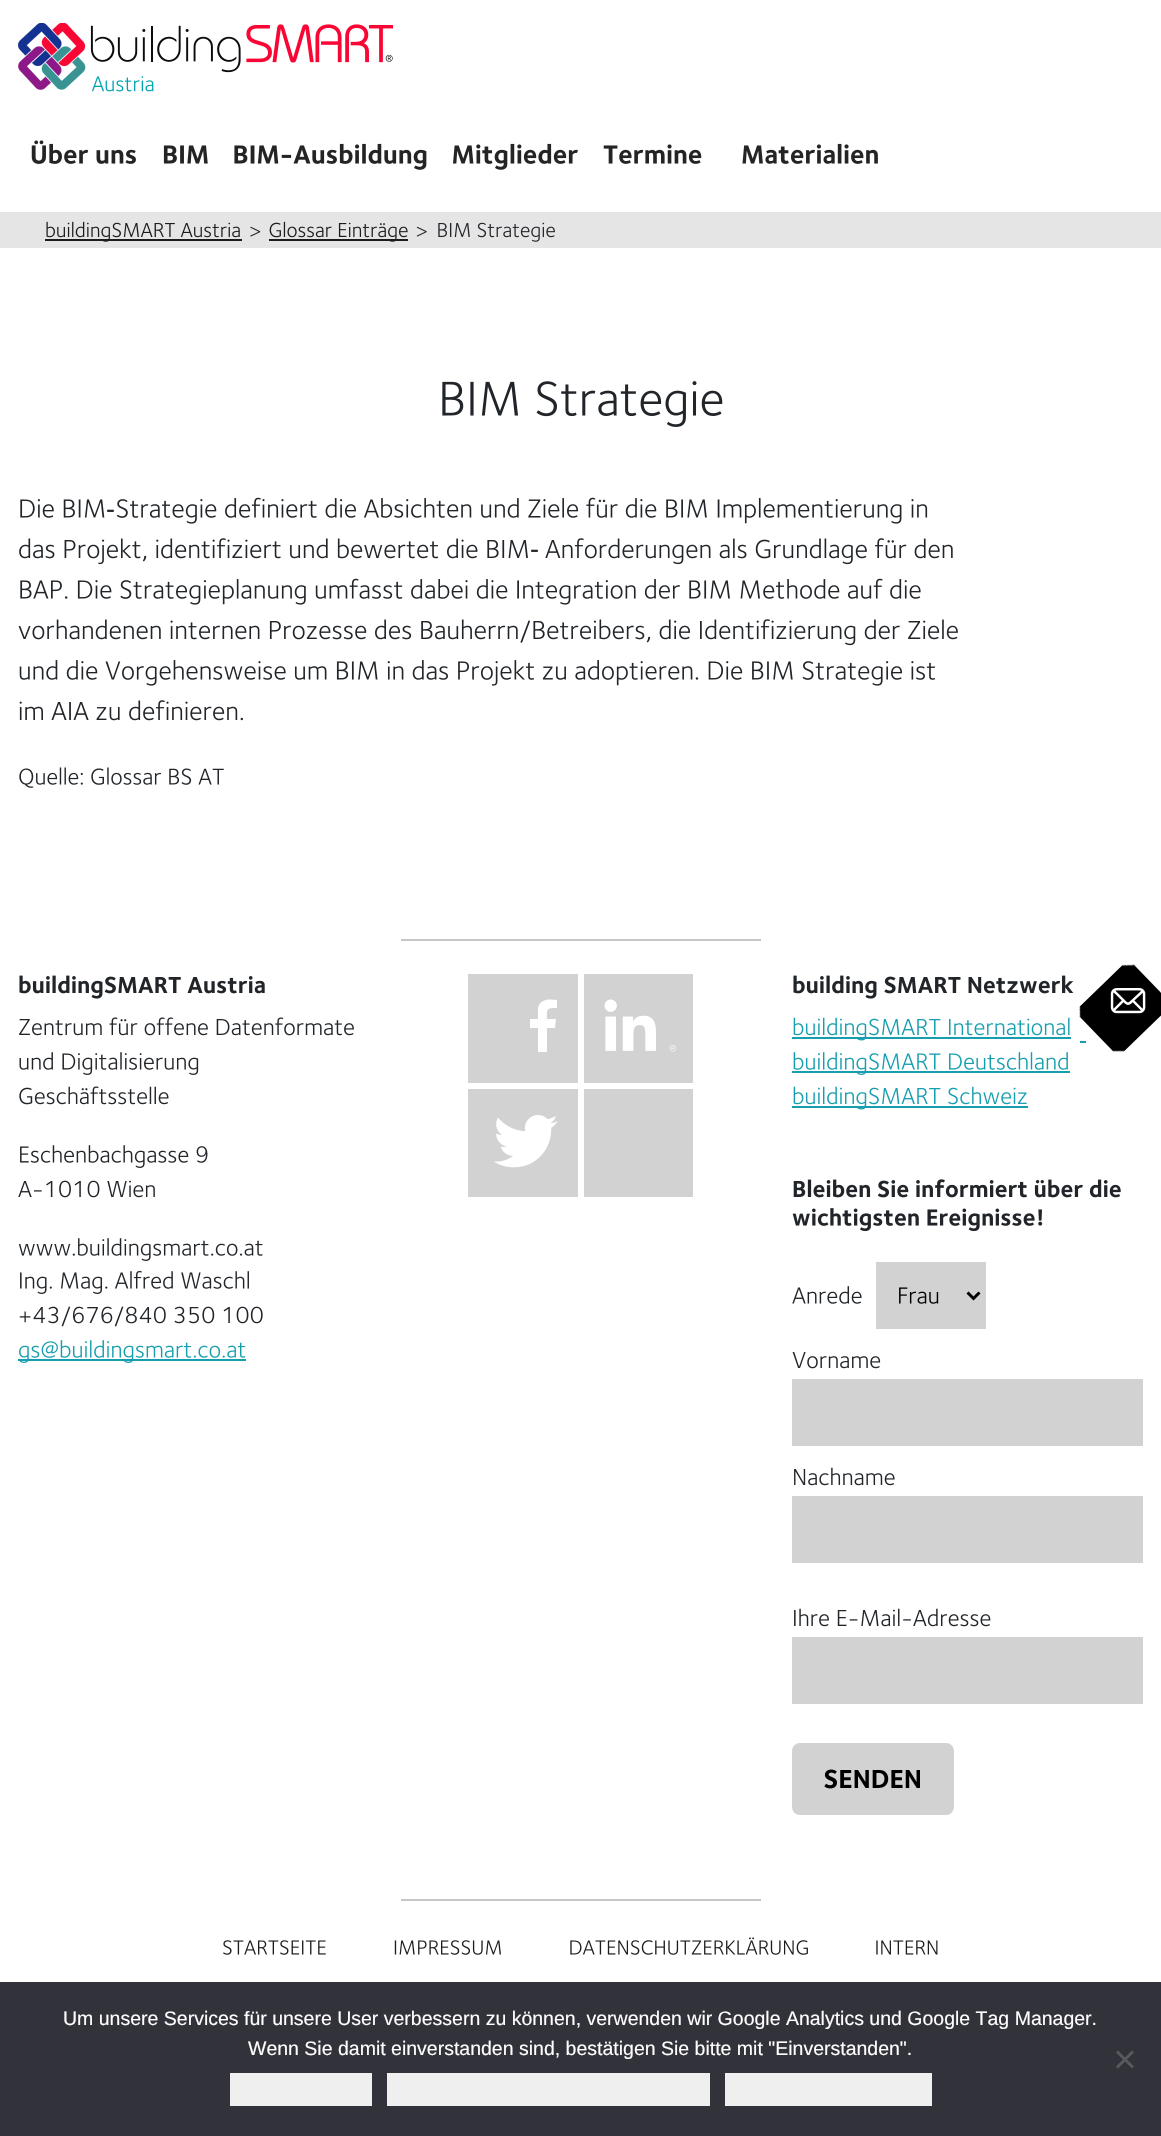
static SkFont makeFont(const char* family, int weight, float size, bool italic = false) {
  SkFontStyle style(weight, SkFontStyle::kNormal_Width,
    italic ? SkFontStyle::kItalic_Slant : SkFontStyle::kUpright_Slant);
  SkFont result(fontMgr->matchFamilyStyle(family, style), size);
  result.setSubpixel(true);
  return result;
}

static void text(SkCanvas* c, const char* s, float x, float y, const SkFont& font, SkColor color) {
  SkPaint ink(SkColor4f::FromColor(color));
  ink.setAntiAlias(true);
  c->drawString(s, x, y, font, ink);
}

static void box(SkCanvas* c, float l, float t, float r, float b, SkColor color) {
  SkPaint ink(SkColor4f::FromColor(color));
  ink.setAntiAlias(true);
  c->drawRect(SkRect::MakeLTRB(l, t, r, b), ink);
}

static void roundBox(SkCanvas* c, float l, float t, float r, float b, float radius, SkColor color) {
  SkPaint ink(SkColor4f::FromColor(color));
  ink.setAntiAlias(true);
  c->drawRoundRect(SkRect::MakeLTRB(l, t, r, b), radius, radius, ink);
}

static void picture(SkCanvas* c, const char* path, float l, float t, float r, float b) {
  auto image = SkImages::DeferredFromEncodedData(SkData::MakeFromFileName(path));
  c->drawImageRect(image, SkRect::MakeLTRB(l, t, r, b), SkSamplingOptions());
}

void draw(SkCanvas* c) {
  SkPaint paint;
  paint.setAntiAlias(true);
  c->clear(0xffffffff);
  picture(c, "img_01.png", 18, 23, 393, 92);
  picture(c, "img_02.png", 31, 140, 136, 164);
  picture(c, "img_03.png", 163, 145, 208, 164);
  picture(c, "img_04.png", 234, 143, 427, 170);
  picture(c, "img_05.png", 453, 143, 578, 170);
  picture(c, "img_06.png", 603, 144, 702, 164);
  picture(c, "img_07.png", 742, 143, 878, 164);
  box(c, 0, 212, 1161, 248, 0xffe5e5e5);
  box(c, 45, 239, 242, 241, 0xff1c1c1c);
  picture(c, "img_08.png", 46, 221, 240, 242);
  picture(c, "img_09.png", 250, 226, 261, 237);
  box(c, 269, 239, 408, 241, 0xff1c1c1c);
  picture(c, "img_10.png", 269, 221, 408, 242);
  picture(c, "img_11.png", 416, 226, 427, 237);
  picture(c, "img_12.png", 438, 222, 555, 242);
  picture(c, "img_13.png", 442, 381, 723, 427);
  picture(c, "img_14.png", 20, 499, 105, 518);
  SkFont face1 = makeFont("Liberation Sans", 400, 27);
  text(c, "‐", 106, 518, face1, 0xff212529);
  picture(c, "img_15.png", 116, 497, 928, 524);
  picture(c, "img_16.png", 19, 538, 528, 565);
  text(c, "‐", 530, 558, face1, 0xff212529);
  picture(c, "img_17.png", 545, 538, 953, 565);
  picture(c, "img_18.png", 20, 578, 921, 605);
  picture(c, "img_19.png", 18, 619, 958, 646);
  picture(c, "img_20.png", 19, 660, 936, 686);
  picture(c, "img_21.png", 19, 700, 243, 721);
  picture(c, "img_22.png", 19, 767, 224, 788);
  box(c, 401, 939, 761, 941, 0xffc6c6c6);
  picture(c, "img_23.png", 19, 975, 265, 999);
  picture(c, "img_24.png", 19, 1017, 354, 1036);
  picture(c, "img_25.png", 19, 1052, 199, 1075);
  picture(c, "img_26.png", 19, 1086, 169, 1105);
  picture(c, "img_27.png", 20, 1145, 208, 1168);
  picture(c, "img_28.png", 18, 1180, 155, 1198);
  picture(c, "img_29.png", 18, 1238, 263, 1261);
  picture(c, "img_30.png", 20, 1270, 249, 1294);
  picture(c, "img_31.png", 19, 1306, 263, 1327);
  box(c, 18, 1359, 246, 1361, 0xff169eaf);
  picture(c, "img_32.png", 19, 1340, 246, 1363);
  box(c, 468, 974, 578, 1083, 0xffd2d2d2);
  paint.setColor(0xffffffff);
  c->drawPath(SkPathBuilder().moveTo(547, 1052).lineTo(547, 1028).lineTo(555, 1028).lineTo(556, 1019).lineTo(547, 1019).cubicTo(547, 1009, 546, 1008, 557, 1008).lineTo(557, 1000).cubicTo(549, 999, 540, 999, 538, 1008).lineTo(538, 1019).lineTo(530, 1019).lineTo(530, 1028).lineTo(538, 1028).lineTo(538, 1052).close().detach(), paint);
  box(c, 584, 974, 693, 1083, 0xffd2d2d2);
  picture(c, "img_33.png", 604, 999, 676, 1052);
  box(c, 468, 1089, 578, 1197, 0xffd2d2d2);
  picture(c, "img_34.png", 494, 1115, 558, 1168);
  box(c, 584, 1089, 693, 1197, 0xffd2d2d2);
  picture(c, "img_35.png", 793, 975, 1074, 999);
  box(c, 792, 1037, 1071, 1039, 0xff169eaf);
  picture(c, "img_36.png", 793, 1017, 1070, 1041);
  box(c, 792, 1071, 1070, 1073, 0xff169eaf);
  picture(c, "img_37.png", 793, 1052, 1068, 1075);
  box(c, 792, 1106, 1028, 1108, 0xff169eaf);
  picture(c, "img_38.png", 793, 1086, 1027, 1110);
  picture(c, "img_39.png", 793, 1179, 1121, 1198);
  picture(c, "img_40.png", 792, 1208, 1043, 1232);
  picture(c, "img_41.png", 792, 1286, 862, 1304);
  box(c, 876, 1262, 986, 1329, 0xffd2d2d2);
  paint.setStyle(SkPaint::kStroke_Style);
  paint.setStrokeWidth(3);
  paint.setColor(0xff000000);
  c->drawPath(SkPathBuilder().moveTo(967.5f, 1292.5f).lineTo(973.5f, 1298.5f).lineTo(979.5f, 1292.5f).detach(), paint);
  picture(c, "img_42.png", 899, 1287, 939, 1304);
  picture(c, "img_43.png", 792, 1352, 881, 1369);
  box(c, 792, 1379, 1143, 1446, 0xffd2d2d2);
  picture(c, "img_44.png", 794, 1467, 895, 1486);
  box(c, 792, 1496, 1143, 1563, 0xffd2d2d2);
  picture(c, "img_45.png", 794, 1608, 991, 1627);
  box(c, 792, 1637, 1143, 1704, 0xffd2d2d2);
  roundBox(c, 792, 1743, 954, 1815, 8, 0xffd2d2d2);
  picture(c, "img_46.png", 824, 1769, 920, 1789);
  box(c, 401, 1899, 761, 1901, 0xffc6c6c6);
  picture(c, "img_47.png", 223, 1940, 326, 1955);
  picture(c, "img_48.png", 394, 1940, 501, 1955);
  picture(c, "img_49.png", 570, 1937, 808, 1955);
  picture(c, "img_50.png", 876, 1940, 938, 1955);
  box(c, 1080, 1041, 1086, 1043, 0xff169eaf);
  picture(c, "img_51.png", 1079, 964, 1161, 1052);
  picture(c, "img_52.png", 1110, 988, 1146, 1014);
  box(c, 0, 1982, 1161, 2136, 0xff32323a);
  SkFont face2 = makeFont("Liberation Sans", 400, 19.5f);
  text(c, "Um unsere Services für unsere User verbessern zu können, verwenden wir Google Analytics und Google Tag Manager.", 63, 2025, face2, 0xffffffff);
  text(c, "Wenn Sie damit einverstanden sind, bestätigen Sie bitte mit \"Einverstanden\".", 248, 2055, face2, 0xffffffff);
  paint.setStyle(SkPaint::kFill_Style);
  paint.setColor(0xff59595d);
  c->drawPath(SkPathBuilder().moveTo(1132, 2050.5f).lineTo(1134, 2052.5f).lineTo(1118, 2068.5f).lineTo(1116, 2066.5f).close().detach(), paint);
  c->drawPath(SkPathBuilder().moveTo(1116, 2052.5f).lineTo(1118, 2050.5f).lineTo(1134, 2066.5f).lineTo(1132, 2068.5f).close().detach(), paint);
  box(c, 230, 2073, 372, 2106, 0xffefefef);
  box(c, 387, 2073, 710, 2106, 0xffefefef);
  box(c, 725, 2073, 932, 2106, 0xffefefef);
}
